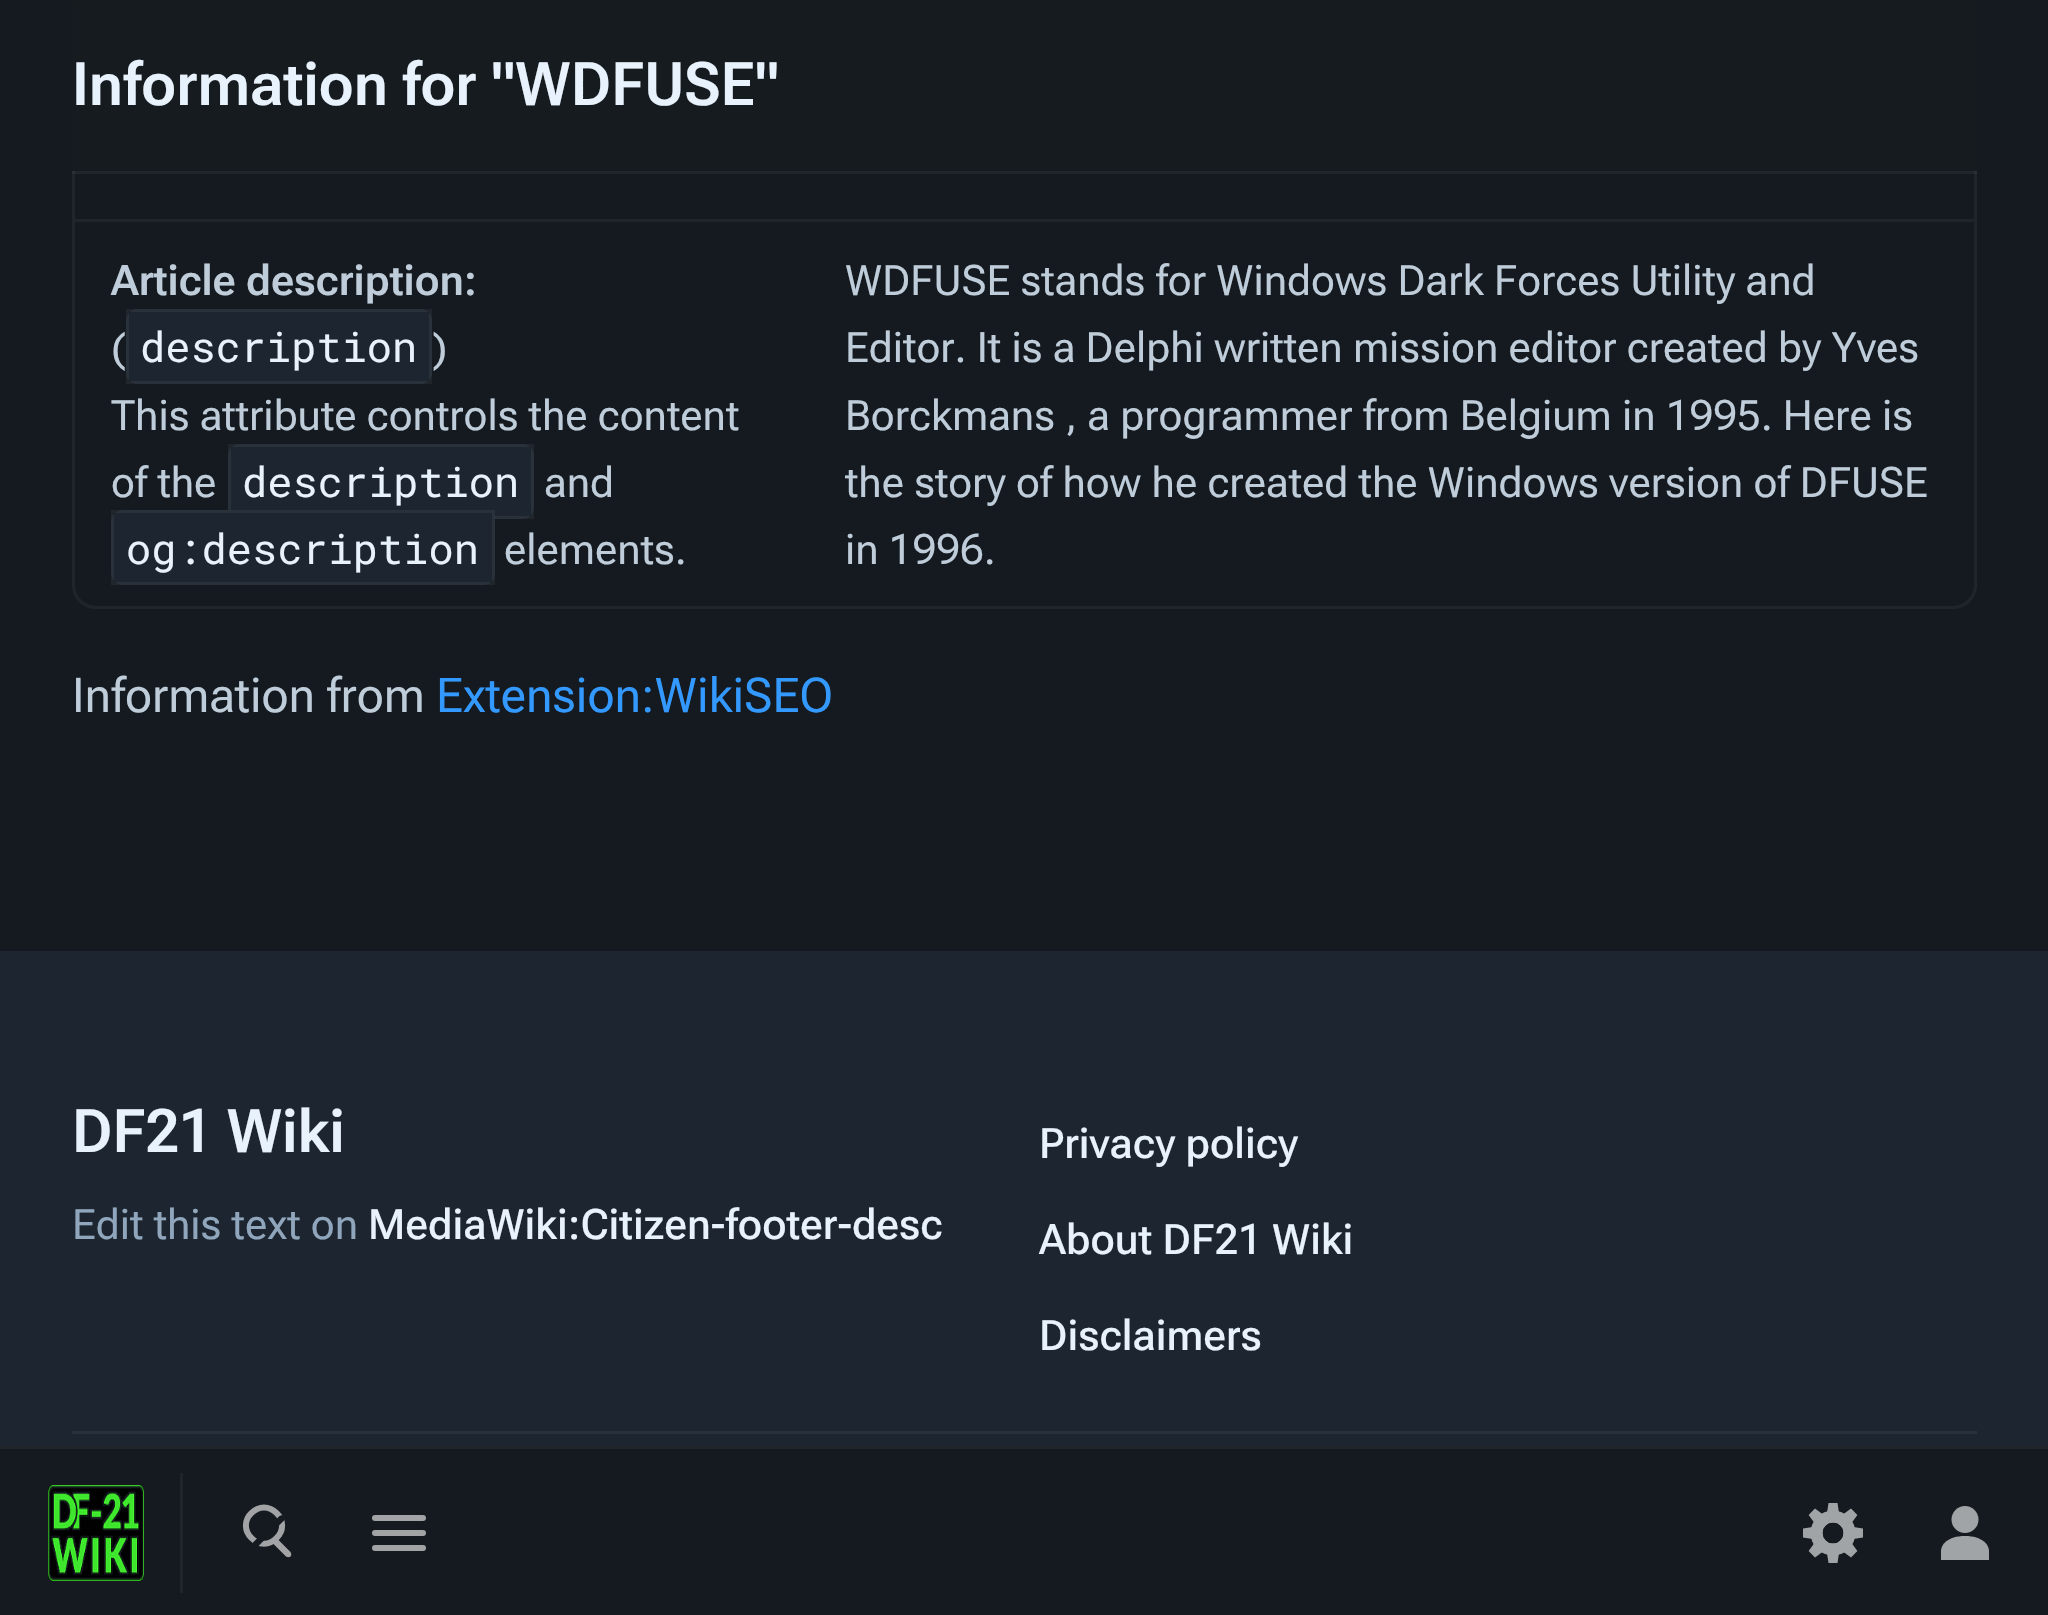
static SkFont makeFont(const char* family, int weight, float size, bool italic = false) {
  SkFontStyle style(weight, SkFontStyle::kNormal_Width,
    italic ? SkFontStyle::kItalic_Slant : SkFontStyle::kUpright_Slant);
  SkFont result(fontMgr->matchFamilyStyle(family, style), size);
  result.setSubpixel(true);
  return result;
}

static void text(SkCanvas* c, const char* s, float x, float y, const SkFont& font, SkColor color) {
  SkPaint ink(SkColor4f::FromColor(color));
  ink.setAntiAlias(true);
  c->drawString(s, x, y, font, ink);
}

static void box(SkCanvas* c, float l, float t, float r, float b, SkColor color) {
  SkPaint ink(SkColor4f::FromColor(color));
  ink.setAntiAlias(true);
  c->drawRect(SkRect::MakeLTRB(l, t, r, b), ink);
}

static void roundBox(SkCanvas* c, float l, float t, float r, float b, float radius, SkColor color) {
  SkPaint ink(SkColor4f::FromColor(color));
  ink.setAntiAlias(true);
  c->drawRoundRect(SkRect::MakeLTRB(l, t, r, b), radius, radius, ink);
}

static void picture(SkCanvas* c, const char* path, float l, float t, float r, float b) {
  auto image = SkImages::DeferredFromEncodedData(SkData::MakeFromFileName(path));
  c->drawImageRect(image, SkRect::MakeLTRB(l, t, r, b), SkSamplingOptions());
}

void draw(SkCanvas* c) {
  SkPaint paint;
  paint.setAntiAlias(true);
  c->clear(0xff141a1f);
  paint.setStyle(SkPaint::kStroke_Style);
  paint.setStrokeWidth(3);
  paint.setColor(0xff20252a);
  c->drawRoundRect(SkRect::MakeLTRB(73.5f, -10.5f, 1975.5f, 607.5f), 22.5f, 22.5f, paint);
  box(c, 72, 171, 1977, 174, 0x0dffffff);
  box(c, 72, 0, 1977, 171, 0xf2141a1f);
  SkFont face1 = makeFont("Roboto Flex", 600, 60);
  text(c, "Information for \"WDFUSE\"", 72, 105, face1, 0xffe8f2fc);
  box(c, 75, 219, 1974, 222, 0xff20252a);
  SkFont face2 = makeFont("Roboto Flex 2", 600, 42);
  text(c, "Article description:", 111, 295, face2, 0xffbfccd9);
  SkFont face3 = makeFont("Roboto Flex", 400, 42);
  text(c, "(", 111, 362, face3, 0xffbfccd9);
  roundBox(c, 126, 309, 432, 384, 12, 0xff1d2630);
  paint.setColor(0x0dffffff);
  c->drawRect(SkRect::MakeLTRB(127.5f, 310.5f, 430.5f, 382.5f), paint);
  SkFont face4 = makeFont("Roboto Mono", 400, 42);
  text(c, "description", 140, 362, face4, 0xffe8f2fc);
  text(c, ")", 433, 362, face3, 0xffbfccd9);
  text(c, "This attribute controls the content", 111, 430, face3, 0xffbfccd9);
  text(c, "of the", 111, 497, face3, 0xffbfccd9);
  roundBox(c, 228, 444, 534, 519, 12, 0xff1d2630);
  c->drawRect(SkRect::MakeLTRB(229.5f, 445.5f, 532.5f, 517.5f), paint);
  text(c, "description", 242, 497, face4, 0xffe8f2fc);
  text(c, "and", 544, 497, face3, 0xffbfccd9);
  roundBox(c, 111, 510, 495, 585, 12, 0xff1d2630);
  c->drawRect(SkRect::MakeLTRB(112.5f, 511.5f, 493.5f, 583.5f), paint);
  text(c, "og:description", 126, 564, face4, 0xffe8f2fc);
  text(c, "elements.", 504, 564, face3, 0xffbfccd9);
  text(c, "WDFUSE stands for Windows Dark Forces Utility and", 845, 295, face3, 0xffbfccd9);
  text(c, "Editor. It is a Delphi written mission editor created by Yves", 845, 362, face3, 0xffbfccd9);
  text(c, "Borckmans , a programmer from Belgium in 1995. Here is", 845, 430, face3, 0xffbfccd9);
  text(c, "the story of how he created the Windows version of DFUSE", 845, 497, face3, 0xffbfccd9);
  text(c, "in 1996.", 845, 564, face3, 0xffbfccd9);
  SkFont face5 = makeFont("Roboto Flex 2", 400, 48);
  text(c, "Information from", 72, 712, face5, 0xffbfccd9);
  text(c, "Extension:WikiSEO", 436, 712, face5, 0xff3399ff);
  box(c, 0, 951, 2048, 1446, 0xff1d2630);
  text(c, "DF21 Wiki", 72, 1152, face1, 0xffe8f2fc);
  text(c, "Edit this text on", 72, 1239, face3, 0xff8fa6bc);
  SkFont face6 = makeFont("Roboto Flex", 500, 42);
  text(c, "MediaWiki:Citizen-footer-desc", 368, 1239, face6, 0xffe8f2fc);
  text(c, "Privacy policy", 1039, 1158, face6, 0xffe8f2fc);
  text(c, "About DF21 Wiki", 1039, 1254, face6, 0xffe8f2fc);
  text(c, "Disclaimers", 1039, 1350, face6, 0xffe8f2fc);
  box(c, 72, 1431, 1977, 1434, 0xff28313a);
  box(c, 0, 1446, 2048, 1449, 0xff20252a);
  box(c, 180, 1473, 183, 1593, 0xff20252a);
  picture(c, "img_01.png", 48, 1485, 144, 1581);
  paint.setStyle(SkPaint::kFill_Style);
  paint.setColor(0xffa1a3a5);
  c->drawPath(SkPathBuilder().moveTo(273.5f, 1539.5f).cubicTo(274.5f, 1538.5f, 276.5f, 1538.5f, 278, 1539.5f).lineTo(290.5f, 1552).cubicTo(291.5f, 1553.5f, 291.5f, 1555.5f, 290.5f, 1556.5f).cubicTo(289.5f, 1557.5f, 287.5f, 1557.5f, 286, 1556.5f).lineTo(273.5f, 1544).cubicTo(272.5f, 1542.5f, 272.5f, 1540.5f, 273.5f, 1539.5f).close().detach(), paint);
  paint.setStyle(SkPaint::kStroke_Style);
  paint.setStrokeWidth(6);
  c->drawPath(SkPathBuilder().moveTo(251.5f, 1513).cubicTo(258.5f, 1505.5f, 269.5f, 1505.5f, 276.5f, 1513).cubicTo(284, 1520, 284, 1531, 276.5f, 1538).cubicTo(269.5f, 1545.5f, 258.5f, 1545.5f, 251.5f, 1538).cubicTo(244, 1531, 244, 1520, 251.5f, 1513).close().detach(), paint);
  paint.setStyle(SkPaint::kFill_Style);
  paint.setColor(0xff141a1f);
  c->drawPath(SkPathBuilder().moveTo(250, 1550).cubicTo(249, 1549, 249, 1547, 250, 1545.5f).lineTo(279.5f, 1516).cubicTo(281, 1515, 283, 1515, 284, 1516).cubicTo(285, 1517, 285, 1519, 284, 1520.5f).lineTo(254.5f, 1550).cubicTo(253, 1551, 251, 1551, 250, 1550).close().detach(), paint);
  roundBox(c, 372, 1515, 426, 1521, 3, 0xffa1a3a5);
  roundBox(c, 372, 1530, 426, 1536, 3, 0xffa1a3a5);
  roundBox(c, 372, 1545, 426, 1551, 3, 0xffa1a3a5);
  picture(c, "img_02.png", 1803, 1503, 1863, 1563);
  picture(c, "img_03.png", 1941, 1506, 1989, 1560);
}
